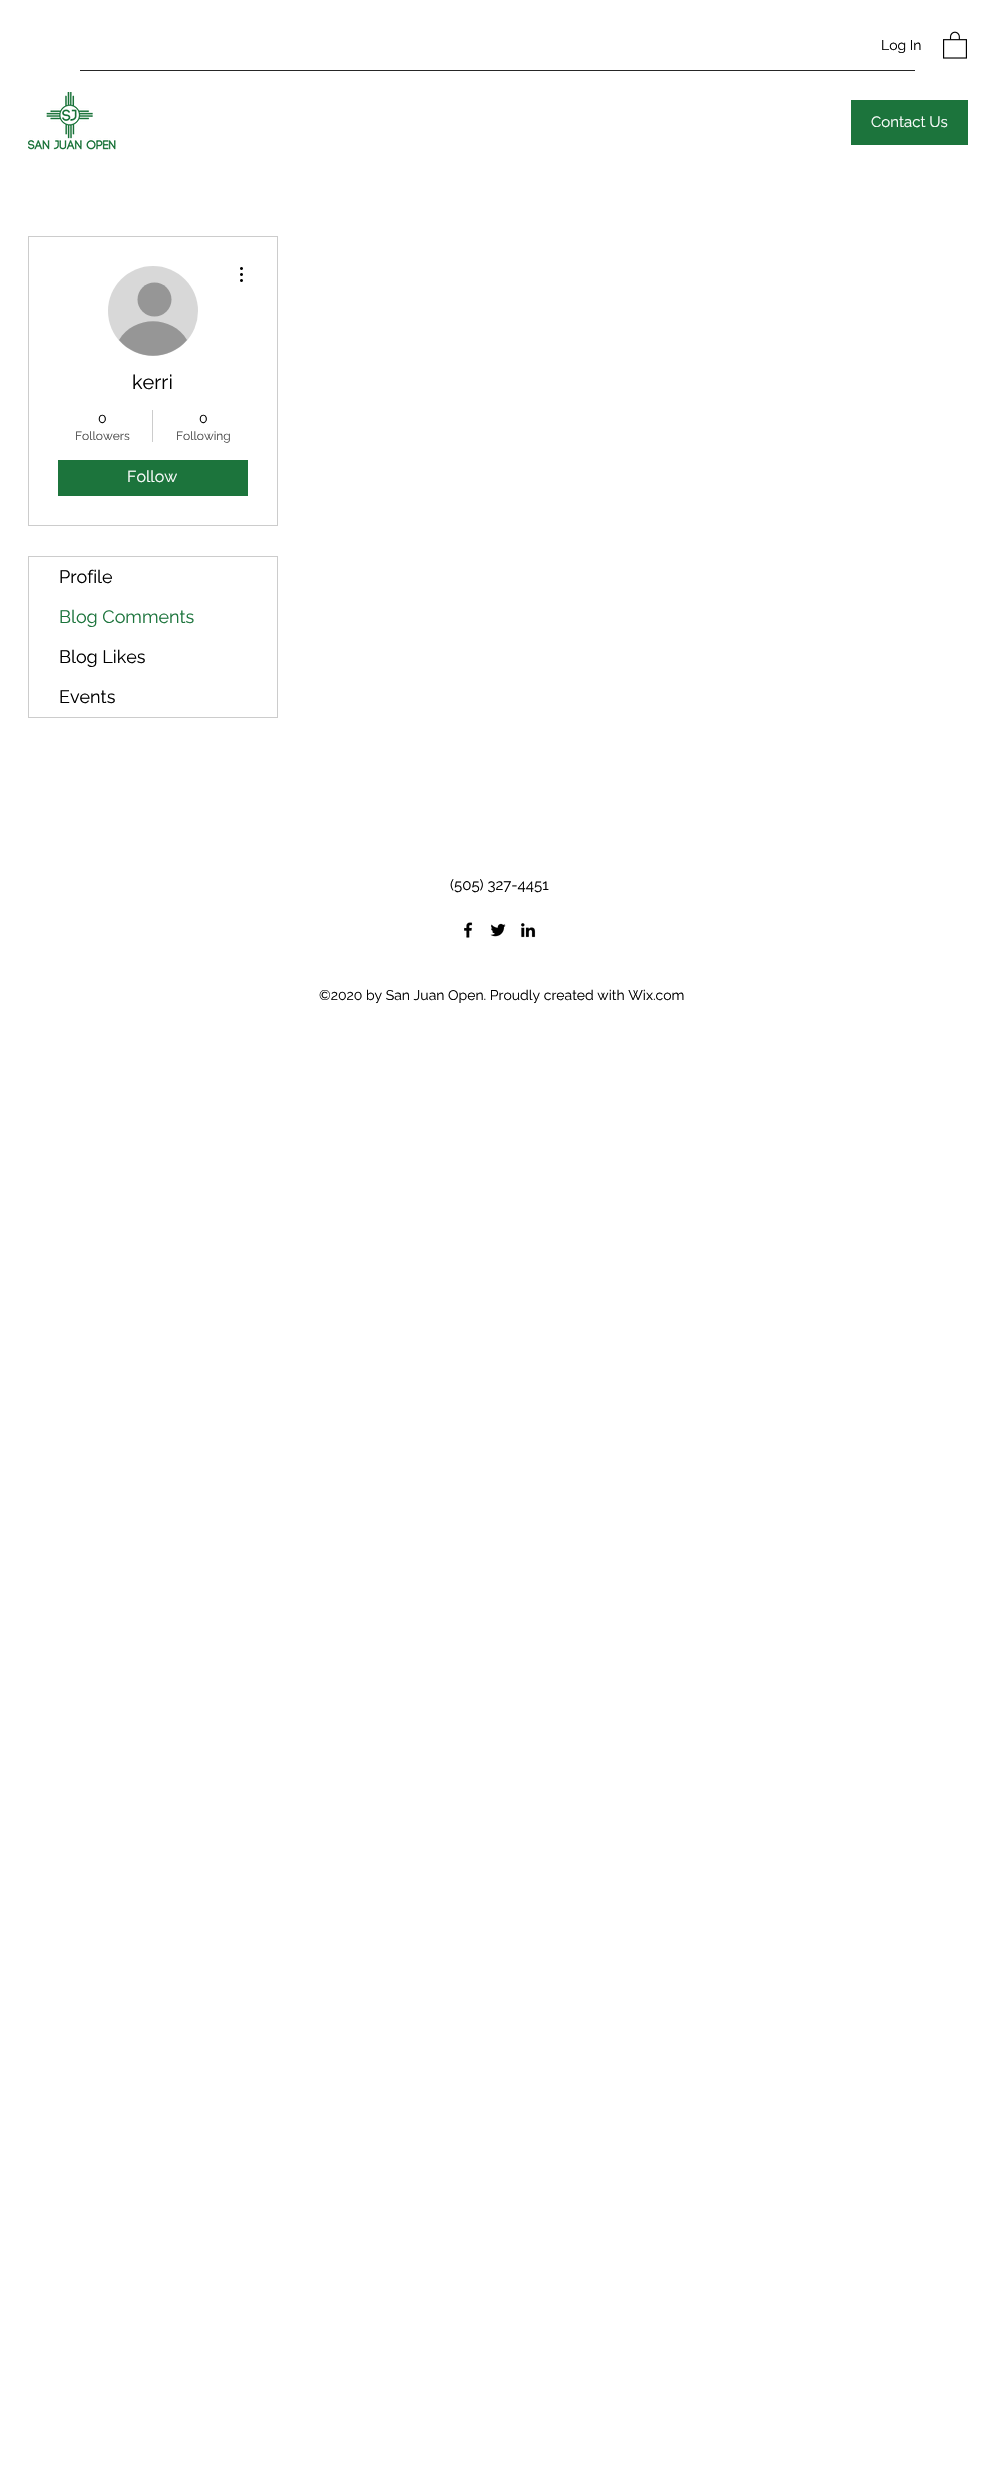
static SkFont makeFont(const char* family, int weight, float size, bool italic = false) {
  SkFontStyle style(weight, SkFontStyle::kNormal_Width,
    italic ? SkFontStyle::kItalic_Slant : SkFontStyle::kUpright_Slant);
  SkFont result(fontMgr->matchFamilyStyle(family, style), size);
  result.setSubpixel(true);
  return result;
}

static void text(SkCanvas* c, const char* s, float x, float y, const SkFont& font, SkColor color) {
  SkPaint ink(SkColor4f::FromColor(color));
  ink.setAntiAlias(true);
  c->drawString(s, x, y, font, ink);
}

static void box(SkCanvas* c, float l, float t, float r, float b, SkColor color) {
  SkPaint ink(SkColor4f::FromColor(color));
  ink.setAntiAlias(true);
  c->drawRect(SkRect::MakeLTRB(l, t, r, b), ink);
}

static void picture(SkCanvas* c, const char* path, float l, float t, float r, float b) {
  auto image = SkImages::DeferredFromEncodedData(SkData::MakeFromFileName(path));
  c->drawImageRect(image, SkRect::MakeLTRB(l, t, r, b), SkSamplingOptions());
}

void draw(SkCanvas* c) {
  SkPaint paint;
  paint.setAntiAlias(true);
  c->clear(0xffffffff);
  SkFont face1 = makeFont("Raleway", 400, 14);
  text(c, "Log In", 881, 50, face1, 0xff000000);
  picture(c, "img_01.png", 943, 31, 967, 59);
  box(c, 80, 70, 915, 71, 0xff262626);
  picture(c, "img_02.png", 28, 92, 116, 150);
  box(c, 851, 100, 968, 145, 0xff1c743c);
  SkFont face2 = makeFont("Raleway", 400, 15);
  text(c, "Contact Us", 871, 127, face2, 0xffffffff);
  paint.setStyle(SkPaint::kStroke_Style);
  paint.setStrokeWidth(1);
  paint.setColor(0xffcccccc);
  c->drawRect(SkRect::MakeLTRB(28.5f, 236.5f, 277.5f, 525.5f), paint);
  paint.setStyle(SkPaint::kFill_Style);
  paint.setColor(0xffd8d8d8);
  c->drawCircle(153, 311, 45, paint);
  paint.setColor(0xff969696);
  c->drawCircle(154.5f, 299.5f, 17, paint);
  c->drawPath(SkPathBuilder().moveTo(187, 340).cubicTo(169, 361, 137, 361, 119, 340).cubicTo(134, 315, 172, 315, 187, 340).close().detach(), paint);
  picture(c, "img_03.png", 240, 267, 243, 282);
  SkFont face3 = makeFont("Raleway", 400, 20);
  text(c, "kerri", 132, 389, face3, 0xff000000);
  text(c, "0", 98, 423, face1, 0xff000000);
  SkFont face4 = makeFont("Raleway", 400, 12);
  text(c, "Followers", 75, 440, face4, 0xff4d4d4d);
  box(c, 152, 410, 153, 442, 0xffcccccc);
  text(c, "0", 199, 423, face1, 0xff000000);
  text(c, "Following", 176, 440, face4, 0xff4d4d4d);
  box(c, 58, 460, 248, 496, 0xff1c743c);
  SkFont face5 = makeFont("Raleway", 400, 16);
  text(c, "Follow", 127, 482, face5, 0xffffffff);
  paint.setStyle(SkPaint::kStroke_Style);
  paint.setColor(0xffcccccc);
  c->drawRect(SkRect::MakeLTRB(28.5f, 556.5f, 277.5f, 717.5f), paint);
  SkFont face6 = makeFont("Raleway", 400, 18);
  text(c, "Profile", 59, 583, face6, 0xff000000);
  text(c, "Blog Comments", 59, 623, face6, 0xff1c743c);
  text(c, "Blog Likes", 59, 663, face6, 0xff000000);
  text(c, "Events", 59, 703, face6, 0xff000000);
  text(c, "(505) 327-4451", 450, 890, face2, 0xff000000);
  picture(c, "img_04.png", 464, 922, 473, 938);
  picture(c, "img_05.png", 490, 923, 506, 937);
  picture(c, "img_06.png", 521, 923, 536, 938);
  text(c, "©2020 by San Juan Open. Proudly created with Wix.com", 319, 1000, face1, 0xff000000);
}
